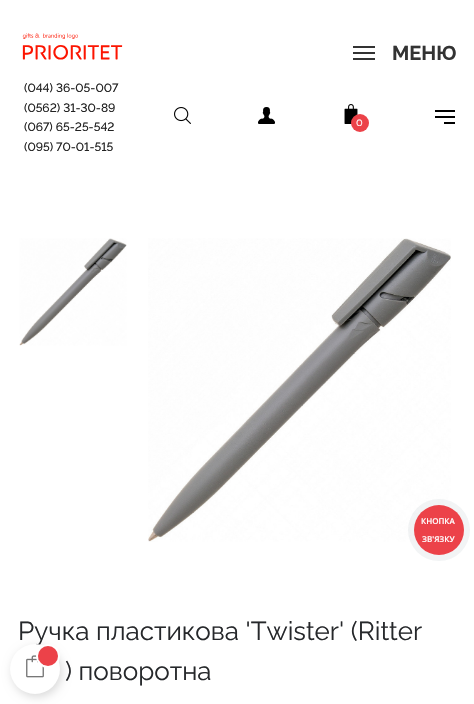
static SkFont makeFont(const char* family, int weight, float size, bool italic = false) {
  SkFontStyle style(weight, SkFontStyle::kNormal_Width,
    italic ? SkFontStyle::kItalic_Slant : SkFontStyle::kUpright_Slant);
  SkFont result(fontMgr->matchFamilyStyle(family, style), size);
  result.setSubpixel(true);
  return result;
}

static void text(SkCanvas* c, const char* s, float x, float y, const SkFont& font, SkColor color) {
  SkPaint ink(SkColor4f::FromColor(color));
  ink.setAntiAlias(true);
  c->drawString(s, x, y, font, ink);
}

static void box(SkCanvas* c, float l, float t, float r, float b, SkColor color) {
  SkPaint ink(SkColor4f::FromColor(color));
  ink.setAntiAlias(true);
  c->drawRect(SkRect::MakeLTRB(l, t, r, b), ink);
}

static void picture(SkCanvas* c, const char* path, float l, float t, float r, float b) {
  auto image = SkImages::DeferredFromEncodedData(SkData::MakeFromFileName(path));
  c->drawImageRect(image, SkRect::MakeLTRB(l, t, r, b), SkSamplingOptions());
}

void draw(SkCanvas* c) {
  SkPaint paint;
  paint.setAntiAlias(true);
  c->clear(0xffffffff);
  picture(c, "img_01.png", 22, 33, 123, 60);
  box(c, 353, 46, 375, 48, 0xff333333);
  box(c, 353, 52, 375, 54, 0xff333333);
  box(c, 353, 58, 375, 60, 0xff333333);
  SkFont face1 = makeFont("Raleway", 700, 20);
  text(c, "МЕНЮ", 392, 60, face1, 0xff333333);
  SkFont face2 = makeFont("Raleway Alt", 500, 12);
  text(c, "(044) 36-05-007", 24, 92, face2, 0xff222222);
  text(c, "(0562) 31-30-89", 24, 112, face2, 0xff222222);
  text(c, "(067) 65-25-542", 24, 131, face2, 0xff222222);
  text(c, "(095) 70-01-515", 24, 151, face2, 0xff222222);
  picture(c, "img_02.png", 174, 107, 191, 124);
  picture(c, "img_03.png", 258, 107, 275, 124);
  picture(c, "img_04.png", 344, 104, 358, 124);
  paint.setColor(0xffec4249);
  c->drawCircle(360, 123, 9, paint);
  SkFont face3 = makeFont("Raleway", 400, 11);
  text(c, "0", 356, 126, face3, 0xffffffff);
  box(c, 435, 110, 455, 112, 0xff000000);
  box(c, 435, 116, 455, 118, 0xff000000);
  box(c, 444, 122, 455, 124, 0xff000000);
  picture(c, "img_05.png", 19, 238, 127, 346);
  picture(c, "img_06.png", 148, 238, 451, 542);
  SkFont face4 = makeFont("Raleway", 400, 26);
  text(c, "Ручка пластикова 'Twister' (Ritter", 18, 640, face4, 0xff26282b);
  text(c, ") поворотна", 65, 680, face4, 0xff26282b);
  paint.setColor(0x0f2a405d);
  c->drawCircle(439, 530, 31, paint);
  paint.setColor(0xffec4249);
  c->drawCircle(439, 530, 25, paint);
  SkFont face5 = makeFont("Open Sans", 600, 8);
  text(c, "КНОПКА", 421, 524, face5, 0xffffffff);
  text(c, "ЗВ'ЯЗКУ", 422, 542, face5, 0xffffffff);
  paint.setColor(0x26000000);
  paint.setMaskFilter(SkMaskFilter::MakeBlur(kNormal_SkBlurStyle, 5));
  c->drawRoundRect(SkRect::MakeLTRB(12, 647, 62, 697), 25, 25, paint);
  paint.setMaskFilter(nullptr);
  paint.setColor(0xffffffff);
  c->drawCircle(35, 669, 25, paint);
  picture(c, "img_07.png", 26, 655, 44, 678);
  paint.setStyle(SkPaint::kStroke_Style);
  paint.setStrokeWidth(2);
  c->drawCircle(48, 656, 11, paint);
  paint.setStyle(SkPaint::kFill_Style);
  paint.setColor(0xffec4249);
  c->drawCircle(48, 656, 10, paint);
}
